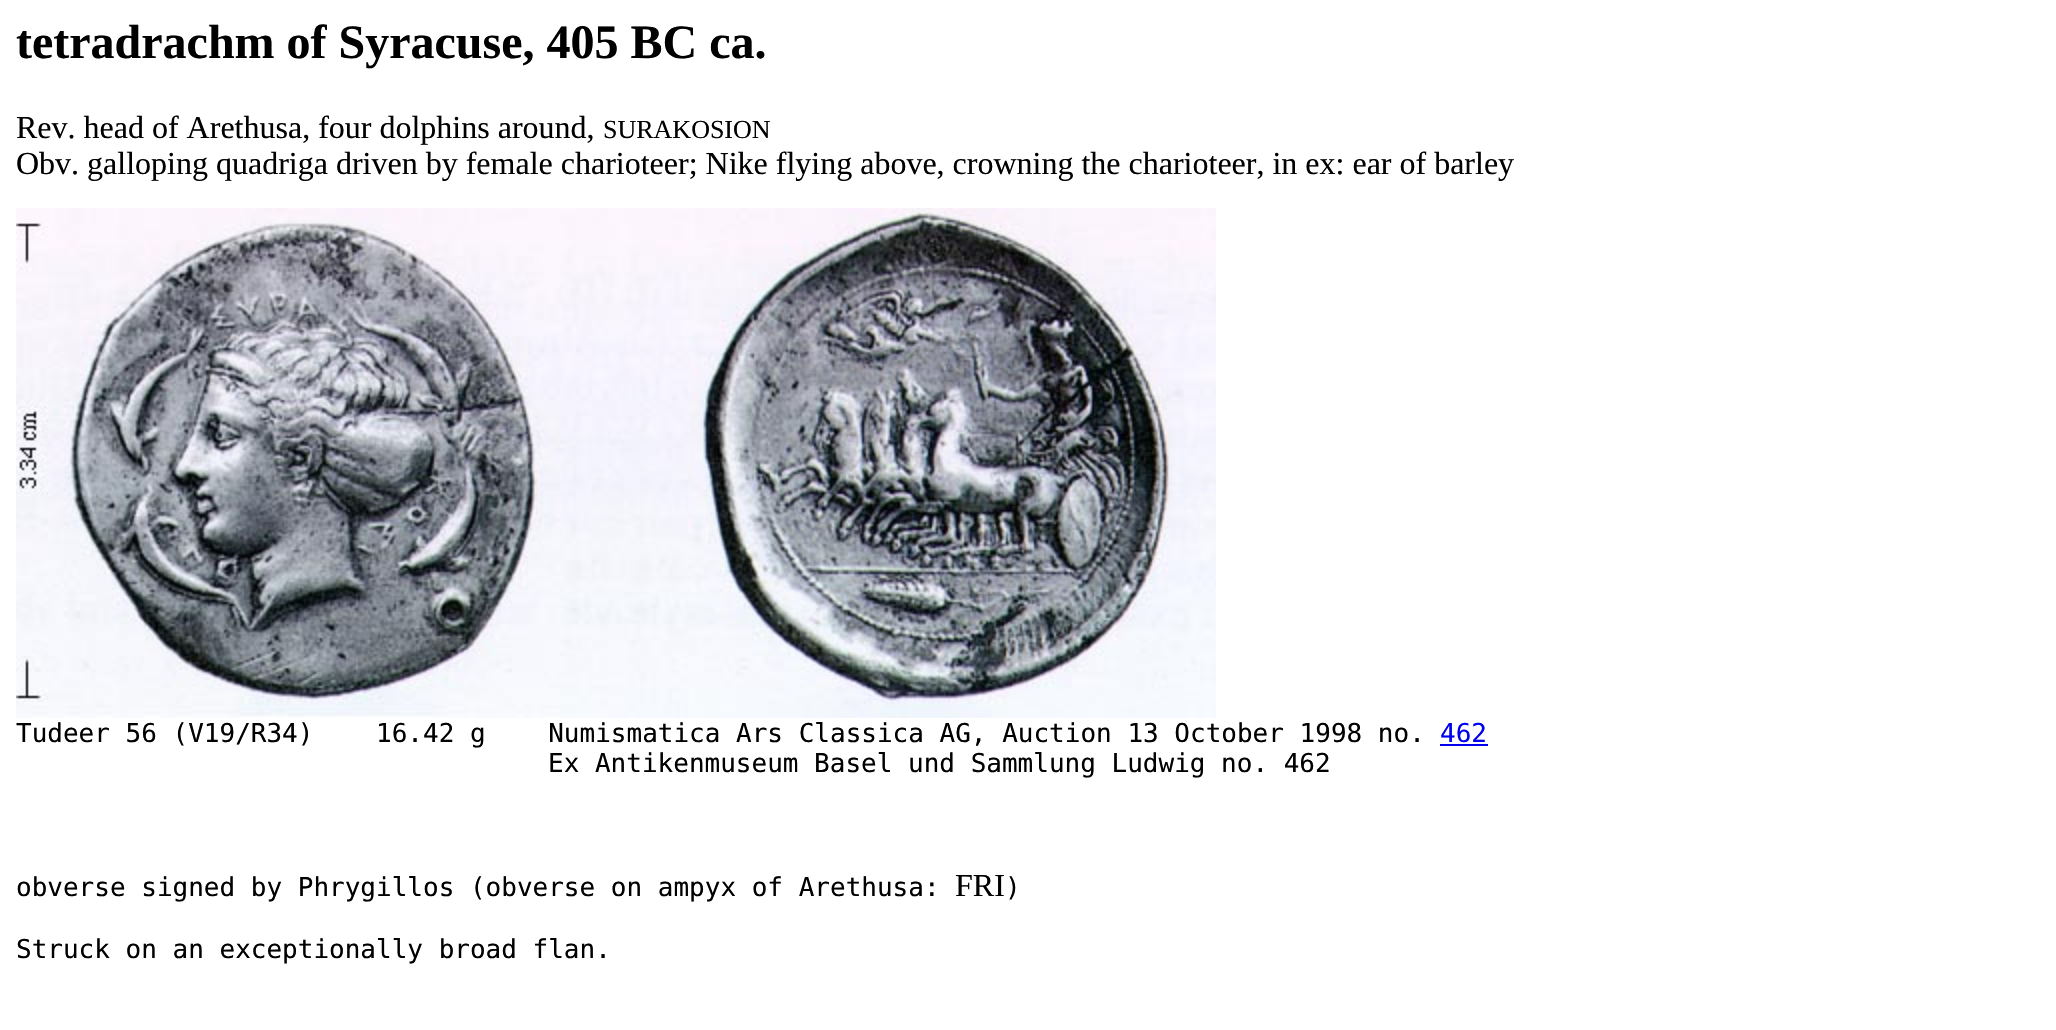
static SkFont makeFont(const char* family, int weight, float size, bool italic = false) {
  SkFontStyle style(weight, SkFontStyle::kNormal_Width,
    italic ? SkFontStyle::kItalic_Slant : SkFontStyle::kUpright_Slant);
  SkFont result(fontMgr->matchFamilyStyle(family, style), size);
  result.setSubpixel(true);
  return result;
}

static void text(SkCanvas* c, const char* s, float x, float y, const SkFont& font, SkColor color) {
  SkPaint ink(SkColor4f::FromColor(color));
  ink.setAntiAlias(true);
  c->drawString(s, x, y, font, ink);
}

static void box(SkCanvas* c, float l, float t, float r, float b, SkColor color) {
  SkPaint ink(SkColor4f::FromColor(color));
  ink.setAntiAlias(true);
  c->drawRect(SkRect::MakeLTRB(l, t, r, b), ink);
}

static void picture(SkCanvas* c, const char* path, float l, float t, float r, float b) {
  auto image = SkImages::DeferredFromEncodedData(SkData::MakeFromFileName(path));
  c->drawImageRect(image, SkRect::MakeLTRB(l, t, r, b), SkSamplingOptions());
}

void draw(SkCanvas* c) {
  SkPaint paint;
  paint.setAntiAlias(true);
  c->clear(0xffffffff);
  SkFont face1 = makeFont("Liberation Serif", 700, 48);
  text(c, "tetradrachm of Syracuse, 405 BC ca.", 16, 58, face1, 0xff000000);
  SkFont face2 = makeFont("Liberation Serif", 400, 32);
  text(c, "Rev. head of Arethusa, four dolphins around,", 16, 138, face2, 0xff000000);
  SkFont face3 = makeFont("Liberation Serif", 400, 26);
  text(c, "SURAKOSION", 603, 138, face3, 0xff000000);
  text(c, "Obv. galloping quadriga driven by female charioteer; Nike flying above, crowning the charioteer, in ex: ear of barley", 16, 174, face2, 0xff000000);
  picture(c, "img_01.png", 16, 208, 1216, 718);
  SkFont face4 = makeFont("DejaVu Sans Mono", 400, 26);
  text(c, "Tudeer 56 (V19/R34)    16.42 g    Numismatica Ars Classica AG, Auction 13 October 1998 no.", 16, 742, face4, 0xff000000);
  text(c, "462", 1440, 742, face4, 0xff0000ee);
  box(c, 1440, 744, 1488, 746, 0xff0000ee);
  text(c, "Ex Antikenmuseum Basel und Sammlung Ludwig no. 462", 548, 772, face4, 0xff000000);
  text(c, "obverse signed by Phrygillos (obverse on ampyx of Arethusa:", 16, 896, face4, 0xff000000);
  text(c, "FRI", 955, 896, face2, 0xff000000);
  text(c, ")", 1005, 896, face4, 0xff000000);
  text(c, "Struck on an exceptionally broad flan.", 16, 958, face4, 0xff000000);
}
